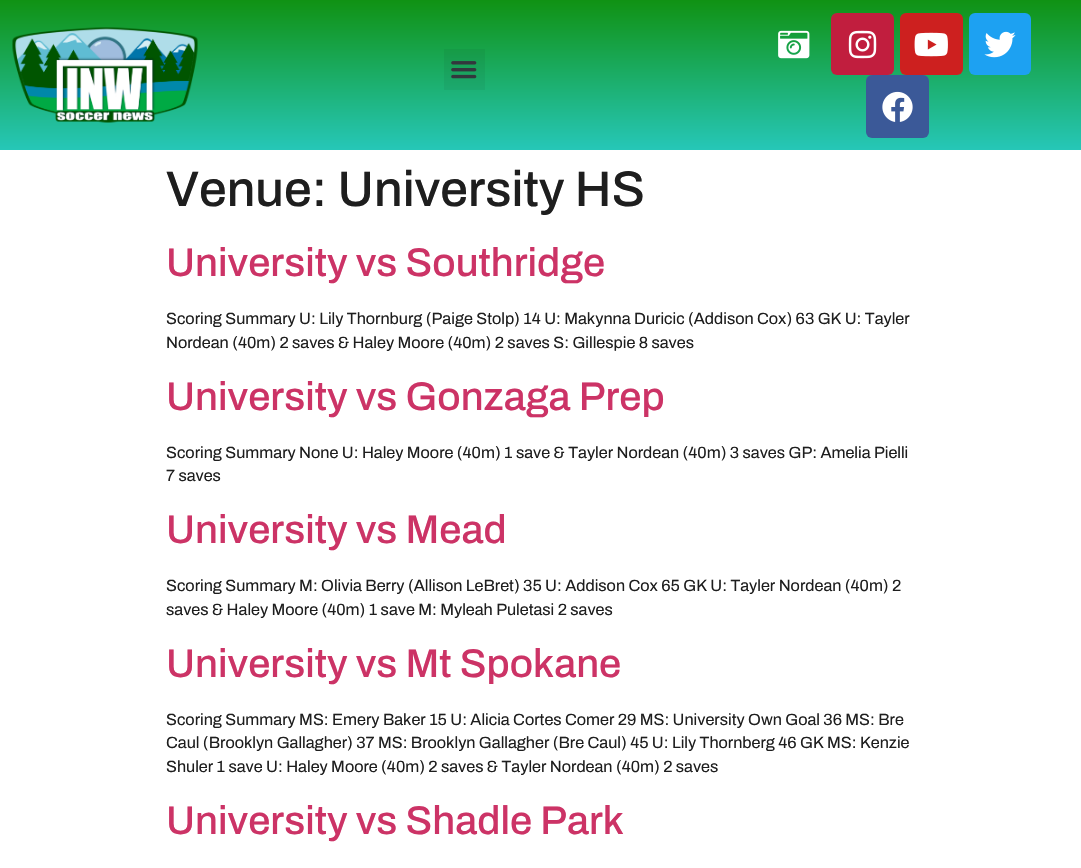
static SkFont makeFont(const char* family, int weight, float size, bool italic = false) {
  SkFontStyle style(weight, SkFontStyle::kNormal_Width,
    italic ? SkFontStyle::kItalic_Slant : SkFontStyle::kUpright_Slant);
  SkFont result(fontMgr->matchFamilyStyle(family, style), size);
  result.setSubpixel(true);
  return result;
}

static void text(SkCanvas* c, const char* s, float x, float y, const SkFont& font, SkColor color) {
  SkPaint ink(SkColor4f::FromColor(color));
  ink.setAntiAlias(true);
  c->drawString(s, x, y, font, ink);
}

static void box(SkCanvas* c, float l, float t, float r, float b, SkColor color) {
  SkPaint ink(SkColor4f::FromColor(color));
  ink.setAntiAlias(true);
  c->drawRect(SkRect::MakeLTRB(l, t, r, b), ink);
}

static void roundBox(SkCanvas* c, float l, float t, float r, float b, float radius, SkColor color) {
  SkPaint ink(SkColor4f::FromColor(color));
  ink.setAntiAlias(true);
  c->drawRoundRect(SkRect::MakeLTRB(l, t, r, b), radius, radius, ink);
}

static void picture(SkCanvas* c, const char* path, float l, float t, float r, float b) {
  auto image = SkImages::DeferredFromEncodedData(SkData::MakeFromFileName(path));
  c->drawImageRect(image, SkRect::MakeLTRB(l, t, r, b), SkSamplingOptions());
}

void draw(SkCanvas* c) {
  SkPaint paint;
  paint.setAntiAlias(true);
  c->clear(0xffffffff);
  {
    const SkColor colors[] = {0xff26c7b8, 0xff109213};
    const float stops[] = {0, 1};
    const SkPoint ends[] = {{541, 150}, {541, 0}};
    paint.setShader(SkGradientShader::MakeLinear(ends, colors, stops, 2, SkTileMode::kClamp));
    paint.setAlpha(255);
  }
  c->drawRect(SkRect::MakeLTRB(0, 0, 1081, 150), paint);
  picture(c, "img_01.png", 12, 27, 198, 123);
  box(c, 444, 49, 485, 90, 0x0d000000);
  picture(c, "img_02.png", 451, 61, 477, 79);
  picture(c, "img_03.png", 778, 30, 810, 59);
  roundBox(c, 831, 13, 894, 75, 6, 0xffc11e3e);
  picture(c, "img_04.png", 848, 30, 877, 59);
  roundBox(c, 900, 13, 963, 75, 6, 0xffcd201f);
  picture(c, "img_05.png", 914, 32, 948, 57);
  roundBox(c, 969, 13, 1031, 75, 6, 0xff1da1f2);
  picture(c, "img_06.png", 984, 31, 1016, 58);
  roundBox(c, 866, 75, 929, 138, 6, 0xff3b5998);
  picture(c, "img_07.png", 882, 91, 913, 122);
  SkFont face1 = makeFont("Archivo", 500, 50);
  text(c, "Venue: University HS", 166, 206, face1, 0xff1e1e1e);
  SkFont face2 = makeFont("Archivo", 500, 40);
  text(c, "University vs Southridge", 166, 276, face2, 0xffcc3366);
  SkFont face3 = makeFont("Archivo", 400, 16.25f);
  text(c, "Scoring Summary U: Lily Thornburg (Paige Stolp) 14 U: Makynna Duricic (Addison Cox) 63 GK U: Tayler", 166, 324, face3, 0xff1e1e1e);
  text(c, "Nordean (40m) 2 saves & Haley Moore (40m) 2 saves S: Gillespie 8 saves", 166, 348, face3, 0xff1e1e1e);
  text(c, "University vs Gonzaga Prep", 166, 410, face2, 0xffcc3366);
  text(c, "Scoring Summary None U: Haley Moore (40m) 1 save & Tayler Nordean (40m) 3 saves GP: Amelia Pielli", 166, 458, face3, 0xff1e1e1e);
  text(c, "7 saves", 166, 481, face3, 0xff1e1e1e);
  text(c, "University vs Mead", 166, 543, face2, 0xffcc3366);
  text(c, "Scoring Summary M: Olivia Berry (Allison LeBret) 35 U: Addison Cox 65 GK U: Tayler Nordean (40m) 2", 166, 591, face3, 0xff1e1e1e);
  text(c, "saves & Haley Moore (40m) 1 save M: Myleah Puletasi 2 saves", 166, 615, face3, 0xff1e1e1e);
  text(c, "University vs Mt Spokane", 166, 677, face2, 0xffcc3366);
  text(c, "Scoring Summary MS: Emery Baker 15 U: Alicia Cortes Comer 29 MS: University Own Goal 36 MS: Bre", 166, 725, face3, 0xff1e1e1e);
  text(c, "Caul (Brooklyn Gallagher) 37 MS: Brooklyn Gallagher (Bre Caul) 45 U: Lily Thornberg 46 GK MS: Kenzie", 166, 748, face3, 0xff1e1e1e);
  text(c, "Shuler 1 save U: Haley Moore (40m) 2 saves & Tayler Nordean (40m) 2 saves", 166, 772, face3, 0xff1e1e1e);
  text(c, "University vs Shadle Park", 166, 834, face2, 0xffcc3366);
}
